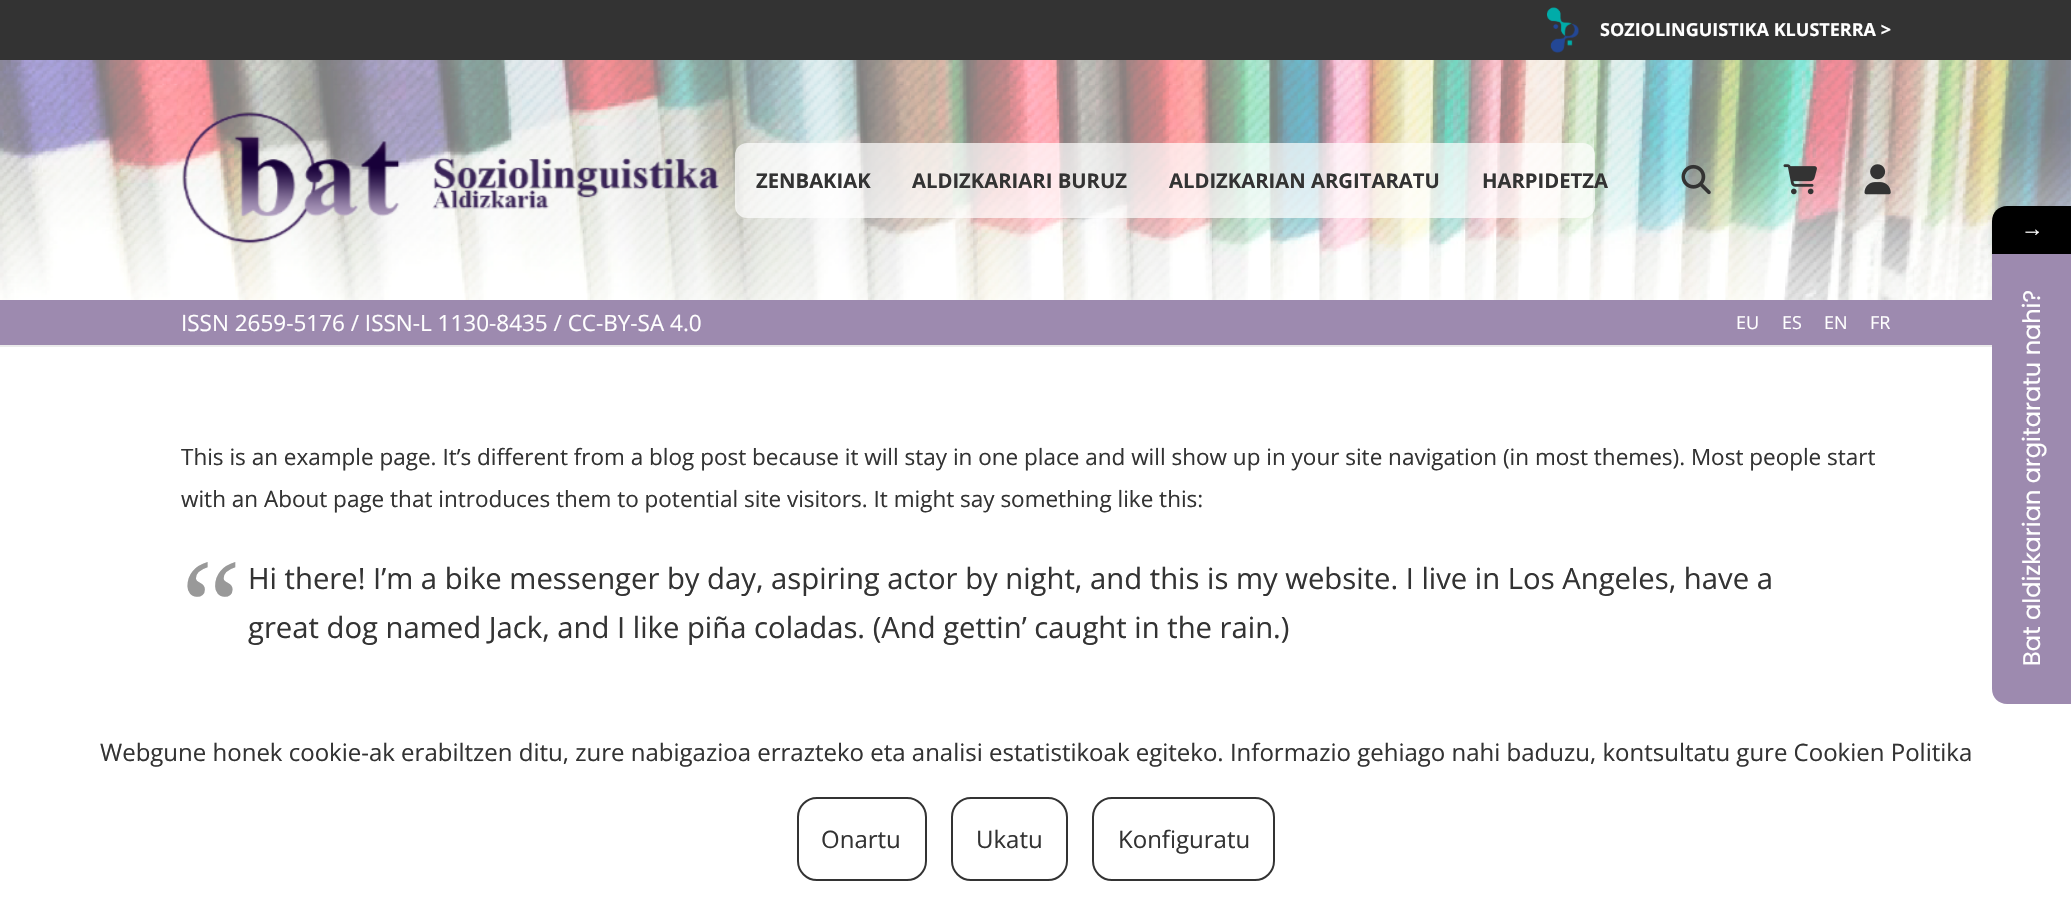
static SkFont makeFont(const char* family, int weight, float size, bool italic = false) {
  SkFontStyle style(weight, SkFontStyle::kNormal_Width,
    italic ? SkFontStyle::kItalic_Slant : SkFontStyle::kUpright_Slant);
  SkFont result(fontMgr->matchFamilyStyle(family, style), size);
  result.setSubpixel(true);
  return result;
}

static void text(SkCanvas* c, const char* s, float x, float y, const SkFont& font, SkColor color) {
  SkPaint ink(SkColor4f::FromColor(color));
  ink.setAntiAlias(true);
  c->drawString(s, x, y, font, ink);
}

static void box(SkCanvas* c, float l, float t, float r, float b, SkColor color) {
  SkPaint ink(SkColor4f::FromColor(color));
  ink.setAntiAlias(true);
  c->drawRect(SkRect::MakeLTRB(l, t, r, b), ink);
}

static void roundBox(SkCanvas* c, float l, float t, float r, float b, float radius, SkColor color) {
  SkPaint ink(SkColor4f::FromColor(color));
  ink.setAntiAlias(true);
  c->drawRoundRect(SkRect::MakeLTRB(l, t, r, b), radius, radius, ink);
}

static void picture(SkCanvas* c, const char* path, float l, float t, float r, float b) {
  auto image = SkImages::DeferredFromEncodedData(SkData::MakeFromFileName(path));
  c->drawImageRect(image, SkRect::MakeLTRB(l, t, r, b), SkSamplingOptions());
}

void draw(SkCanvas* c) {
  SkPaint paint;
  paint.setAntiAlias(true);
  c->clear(0xffffffff);
  box(c, 0, 0, 2071, 60, 0xff333333);
  picture(c, "img_01.png", 1547, 7, 1579, 53);
  SkFont face1 = makeFont("Open Sans", 700, 18);
  text(c, "SOZIOLINGUISTIKA KLUSTERRA >", 1600, 36, face1, 0xffffffff);
  picture(c, "img_02.png", 0, 60, 2071, 300);
  picture(c, "img_03.png", 182, 112, 719, 244);
  roundBox(c, 735, 143, 1595, 218, 12, 0xb3ffffff);
  SkFont face2 = makeFont("Open Sans", 700, 20.25f);
  text(c, "ZENBAKIAK", 756, 188, face2, 0xff333333);
  text(c, "ALDIZKARIARI BURUZ", 912, 188, face2, 0xff333333);
  text(c, "ALDIZKARIAN ARGITARATU", 1169, 188, face2, 0xff333333);
  text(c, "HARPIDETZA", 1482, 188, face2, 0xff333333);
  picture(c, "img_04.png", 1681, 164, 1711, 195);
  picture(c, "img_05.png", 1783, 164, 1817, 195);
  picture(c, "img_06.png", 1864, 164, 1891, 195);
  paint.setColor(0xffebebeb);
  c->drawPath(SkPathBuilder().moveTo(0, 345).lineTo(0, 347).lineTo(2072, 347).lineTo(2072, 302).lineTo(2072, 345).close().detach(), paint);
  box(c, 0, 300, 1992, 345, 0xff9d8aaf);
  SkFont face3 = makeFont("Open Sans", 400, 22.5f);
  text(c, "ISSN 2659-5176 / ISSN-L 1130-8435 / CC-BY-SA 4.0", 181, 331, face3, 0xffffffff);
  SkFont face4 = makeFont("Open Sans", 400, 18);
  text(c, "EU", 1736, 329, face4, 0xffffffff);
  text(c, "ES", 1782, 329, face4, 0xffffffff);
  text(c, "EN", 1824, 329, face4, 0xffffffff);
  text(c, "FR", 1870, 329, face4, 0xffffffff);
  text(c, "This is an example page. It’s different from a blog post because it will stay in one place and will show up in your site navigation (in most themes). Most people start", 181, 465, face3, 0xff333333);
  text(c, "with an About page that introduces them to potential site visitors. It might say something like this:", 181, 507, face3, 0xff333333);
  SkFont face5 = makeFont("Liberation Serif", 400, 135);
  text(c, "“", 181, 652, face5, 0xff999999);
  SkFont face6 = makeFont("Open Sans", 400, 29.25f);
  text(c, "Hi there! I’m a bike messenger by day, aspiring actor by night, and this is my website. I live in Los Angeles, have a", 248, 589, face6, 0xff333333);
  text(c, "great dog named Jack, and I like piña coladas. (And gettin’ caught in the rain.)", 248, 638, face6, 0xff333333);
  paint.setColor(0x29000000);
  paint.setMaskFilter(SkMaskFilter::MakeBlur(kNormal_SkBlurStyle, 4.5f));
  c->drawRoundRect(SkRect::MakeLTRB(1992, 210, 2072, 258), 15, 15, paint);
  paint.setMaskFilter(nullptr);
  paint.setColor(0xff000000);
  c->drawPath(SkPathBuilder().moveTo(2007, 206).lineTo(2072, 206).lineTo(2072, 254).lineTo(1992, 254).lineTo(1992, 221).cubicTo(1992, 212.5f, 1998.5f, 206, 2007, 206).close().detach(), paint);
  SkFont face7 = makeFont("Liberation Serif", 400, 22.5f);
  text(c, "→", 2021, 236, face7, 0xffffffff);
  paint.setColor(0xff9d8aaf);
  c->drawPath(SkPathBuilder().moveTo(1992, 254).lineTo(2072, 254).lineTo(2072, 704).lineTo(2007, 704).cubicTo(1998.5f, 704, 1992, 697.5f, 1992, 689).close().detach(), paint);
  SkFont face8 = makeFont("Poppins", 400, 24);
  c->save();
  c->rotate(-90, 2040, 666);
  text(c, "Bat aldizkarian argitaratu nahi?", 2040, 666, face8, 0xffffffff);
  c->restore();
  SkFont face9 = makeFont("Open Sans", 400, 24);
  text(c, "Webgune honek cookie-ak erabiltzen ditu, zure nabigazioa errazteko eta analisi estatistikoak egiteko. Informazio gehiago nahi baduzu, kontsultatu gure Cookien Politika", 100, 761, face9, 0xff333333);
  paint.setStyle(SkPaint::kStroke_Style);
  paint.setStrokeWidth(2);
  paint.setColor(0xff333333);
  c->drawRoundRect(SkRect::MakeLTRB(798, 798, 926, 880), 19, 19, paint);
  text(c, "Onartu", 821, 848, face9, 0xff333333);
  c->drawRoundRect(SkRect::MakeLTRB(952, 798, 1067, 880), 19, 19, paint);
  text(c, "Ukatu", 976, 848, face9, 0xff333333);
  c->drawRoundRect(SkRect::MakeLTRB(1093, 798, 1274, 880), 19, 19, paint);
  text(c, "Konfiguratu", 1118, 848, face9, 0xff333333);
}
